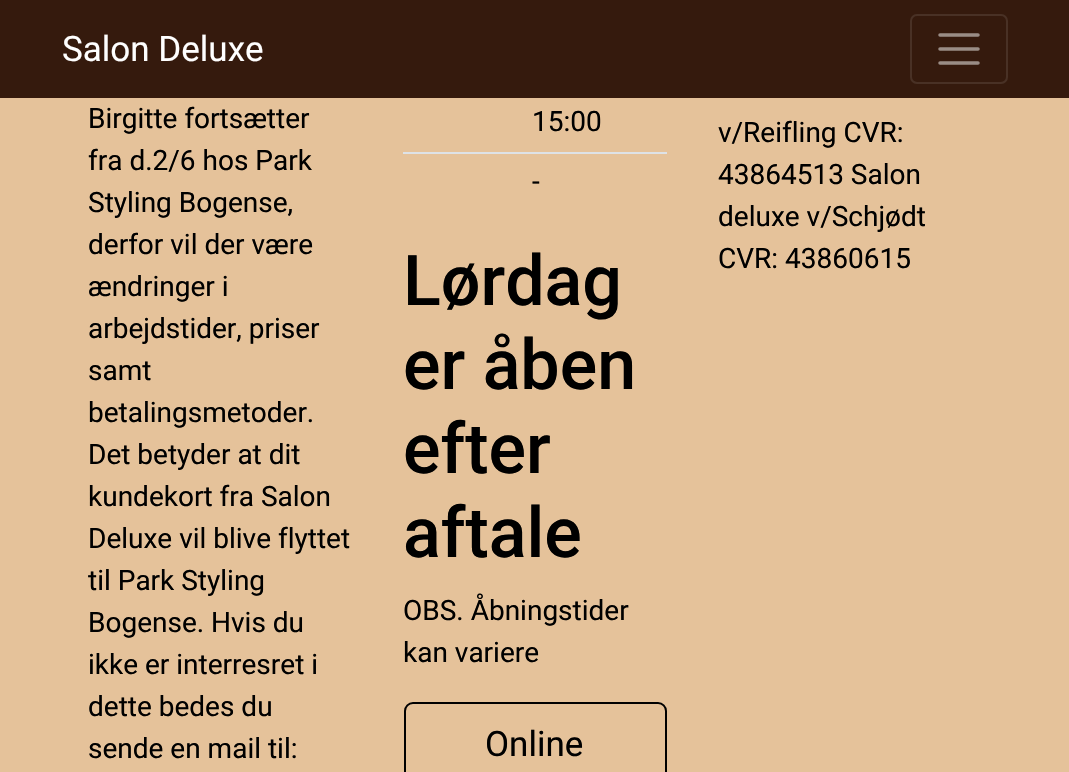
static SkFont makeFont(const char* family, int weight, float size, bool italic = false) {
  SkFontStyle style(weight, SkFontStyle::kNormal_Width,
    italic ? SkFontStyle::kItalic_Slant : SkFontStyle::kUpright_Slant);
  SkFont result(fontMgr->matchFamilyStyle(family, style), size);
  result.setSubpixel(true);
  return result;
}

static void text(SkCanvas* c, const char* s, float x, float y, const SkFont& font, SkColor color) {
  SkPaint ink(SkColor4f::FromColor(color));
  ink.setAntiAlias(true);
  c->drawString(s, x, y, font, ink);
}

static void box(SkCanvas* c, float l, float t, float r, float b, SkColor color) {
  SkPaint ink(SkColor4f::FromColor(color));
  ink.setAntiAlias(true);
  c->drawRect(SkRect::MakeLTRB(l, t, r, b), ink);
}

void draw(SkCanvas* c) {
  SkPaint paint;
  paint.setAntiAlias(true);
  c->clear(0xffe5c29a);
  box(c, 0, 0, 1069, 98, 0xff351a0d);
  SkFont face1 = makeFont("Roboto", 400, 35);
  text(c, "Salon Deluxe", 62, 61, face1, 0xffffffff);
  paint.setStyle(SkPaint::kStroke_Style);
  paint.setStrokeWidth(2);
  paint.setColor(0xff493125);
  c->drawRoundRect(SkRect::MakeLTRB(911, 15, 1007, 83), 6, 6, paint);
  paint.setStrokeWidth(3.5f);
  paint.setStrokeCap(SkPaint::kRound_Cap);
  paint.setColor(0xff9a8d86);
  c->drawPath(SkPathBuilder().moveTo(940, 35).lineTo(978, 35).moveTo(940, 49).lineTo(978, 49).moveTo(940, 63).lineTo(978, 63).detach(), paint);
  SkFont face2 = makeFont("Roboto", 400, 28);
  text(c, "Birgitte fortsætter", 88, 128, face2, 0xff000000);
  text(c, "fra d.2/6 hos Park", 88, 170, face2, 0xff000000);
  text(c, "Styling Bogense,", 88, 212, face2, 0xff000000);
  text(c, "derfor vil der være", 88, 254, face2, 0xff000000);
  text(c, "ændringer i", 88, 296, face2, 0xff000000);
  text(c, "arbejdstider, priser", 88, 338, face2, 0xff000000);
  text(c, "samt", 88, 380, face2, 0xff000000);
  text(c, "betalingsmetoder.", 88, 422, face2, 0xff000000);
  text(c, "Det betyder at dit", 88, 464, face2, 0xff000000);
  text(c, "kundekort fra Salon", 88, 506, face2, 0xff000000);
  text(c, "Deluxe vil blive flyttet", 88, 548, face2, 0xff000000);
  text(c, "til Park Styling", 88, 590, face2, 0xff000000);
  text(c, "Bogense. Hvis du", 88, 632, face2, 0xff000000);
  text(c, "ikke er interresret i", 88, 674, face2, 0xff000000);
  text(c, "dette bedes du", 88, 716, face2, 0xff000000);
  text(c, "sende en mail til:", 88, 758, face2, 0xff000000);
  text(c, "15:00", 532, 131, face2, 0xff000000);
  box(c, 403, 152, 667, 154, 0xffdee2e6);
  text(c, "-", 532, 191, face2, 0xff000000);
  SkFont face3 = makeFont("Roboto", 500, 70);
  text(c, "Lørdag", 403, 305, face3, 0xff000000);
  text(c, "er åben", 403, 389, face3, 0xff000000);
  text(c, "efter", 403, 473, face3, 0xff000000);
  text(c, "aftale", 403, 557, face3, 0xff000000);
  text(c, "OBS. Åbningstider", 403, 620, face2, 0xff000000);
  text(c, "kan variere", 403, 662, face2, 0xff000000);
  paint.setStrokeWidth(2);
  paint.setStrokeCap(SkPaint::kButt_Cap);
  paint.setColor(0xff000000);
  c->drawRoundRect(SkRect::MakeLTRB(405, 703, 666, 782), 8, 8, paint);
  text(c, "Online", 485, 756, face1, 0xff000000);
  text(c, "v/Reifling CVR:", 718, 142, face2, 0xff000000);
  text(c, "43864513 Salon", 718, 184, face2, 0xff000000);
  text(c, "deluxe v/Schjødt", 718, 226, face2, 0xff000000);
  text(c, "CVR: 43860615", 718, 268, face2, 0xff000000);
}
